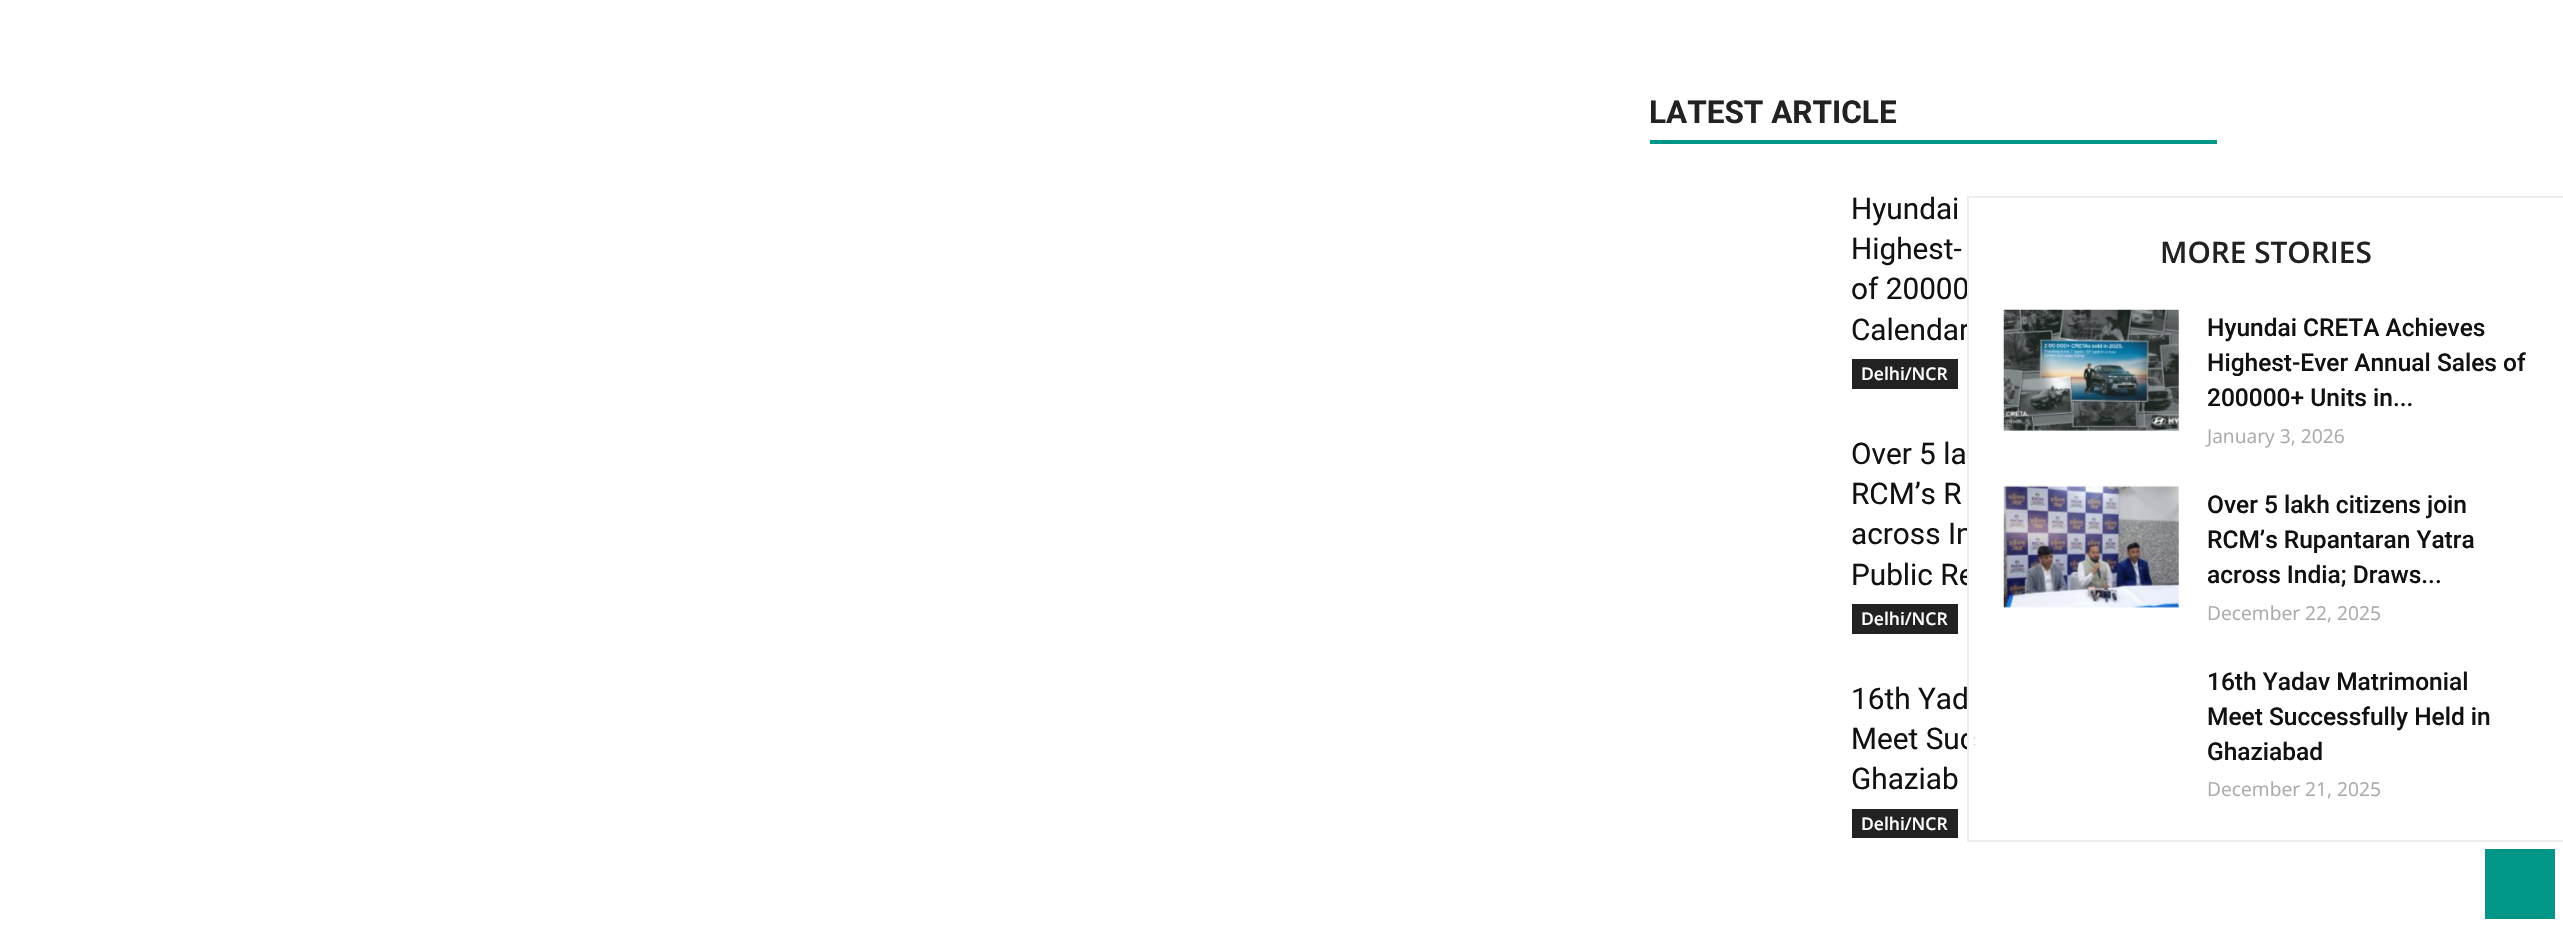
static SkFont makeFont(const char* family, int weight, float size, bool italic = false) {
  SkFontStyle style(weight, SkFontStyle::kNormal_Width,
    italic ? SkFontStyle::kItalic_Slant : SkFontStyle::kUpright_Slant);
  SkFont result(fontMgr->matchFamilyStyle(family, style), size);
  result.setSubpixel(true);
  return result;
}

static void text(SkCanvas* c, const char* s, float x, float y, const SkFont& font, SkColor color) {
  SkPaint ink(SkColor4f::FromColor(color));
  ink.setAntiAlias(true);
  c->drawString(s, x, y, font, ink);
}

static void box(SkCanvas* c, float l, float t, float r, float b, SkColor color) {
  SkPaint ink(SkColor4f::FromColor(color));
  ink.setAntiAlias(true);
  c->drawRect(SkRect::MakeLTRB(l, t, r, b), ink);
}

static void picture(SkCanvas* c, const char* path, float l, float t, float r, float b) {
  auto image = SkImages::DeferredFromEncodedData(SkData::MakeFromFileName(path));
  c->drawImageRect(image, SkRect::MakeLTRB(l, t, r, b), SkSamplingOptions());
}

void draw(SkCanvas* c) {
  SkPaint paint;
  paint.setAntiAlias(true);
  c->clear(0xffffffff);
  box(c, 1650, 140, 2217, 144, 0xff009688);
  SkFont face1 = makeFont("Roboto", 700, 31.5f);
  text(c, "LATEST ARTICLE", 1649, 123, face1, 0xff222222);
  SkFont face2 = makeFont("Roboto", 400, 29.75f);
  text(c, "Hyundai", 1851, 219, face2, 0xff111111);
  text(c, "Highest-", 1851, 259, face2, 0xff111111);
  text(c, "of 20000", 1851, 299, face2, 0xff111111);
  text(c, "Calendar", 1851, 340, face2, 0xff111111);
  box(c, 1852, 359, 1958, 389, 0xff222222);
  SkFont face3 = makeFont("Open Sans", 600, 17.5f);
  text(c, "Delhi/NCR", 1861, 380, face3, 0xffffffff);
  text(c, "Over 5 la", 1851, 464, face2, 0xff111111);
  text(c, "RCM’s R", 1851, 504, face2, 0xff111111);
  text(c, "across In", 1851, 544, face2, 0xff111111);
  text(c, "Public Re", 1851, 585, face2, 0xff111111);
  box(c, 1852, 604, 1958, 634, 0xff222222);
  text(c, "Delhi/NCR", 1861, 625, face3, 0xffffffff);
  text(c, "16th Yad", 1851, 709, face2, 0xff111111);
  text(c, "Meet Suc", 1851, 749, face2, 0xff111111);
  text(c, "Ghaziab", 1851, 789, face2, 0xff111111);
  box(c, 1852, 809, 1958, 838, 0xff222222);
  text(c, "Delhi/NCR", 1861, 830, face3, 0xffffffff);
  box(c, 1969, 529, 1974, 750, 0xffffffff);
  box(c, 1967, 196, 2563, 198, 0xffededed);
  box(c, 1967, 840, 2563, 842, 0xffededed);
  box(c, 1967, 196, 1969, 842, 0xffededed);
  SkFont face4 = makeFont("Open Sans", 600, 29.75f);
  text(c, "MORE STORIES", 2160, 263, face4, 0xff222222);
  picture(c, "img_01.png", 2003, 309, 2179, 431);
  SkFont face5 = makeFont("Roboto", 500, 24.5f);
  text(c, "Hyundai CRETA Achieves", 2207, 336, face5, 0xff111111);
  text(c, "Highest-Ever Annual Sales of", 2207, 371, face5, 0xff111111);
  text(c, "200000+ Units in...", 2207, 406, face5, 0xff111111);
  SkFont face6 = makeFont("Open Sans", 400, 19.25f);
  text(c, "January 3, 2026", 2207, 443, face6, 0xffaaaaaa);
  picture(c, "img_02.png", 2003, 485, 2179, 608);
  text(c, "Over 5 lakh citizens join", 2207, 513, face5, 0xff111111);
  text(c, "RCM’s Rupantaran Yatra", 2207, 548, face5, 0xff111111);
  text(c, "across India; Draws...", 2207, 583, face5, 0xff111111);
  text(c, "December 22, 2025", 2207, 620, face6, 0xffaaaaaa);
  text(c, "16th Yadav Matrimonial", 2207, 690, face5, 0xff111111);
  text(c, "Meet Successfully Held in", 2207, 725, face5, 0xff111111);
  text(c, "Ghaziabad", 2207, 760, face5, 0xff111111);
  text(c, "December 21, 2025", 2207, 796, face6, 0xffaaaaaa);
  box(c, 2485, 849, 2555, 919, 0xff009688);
}
